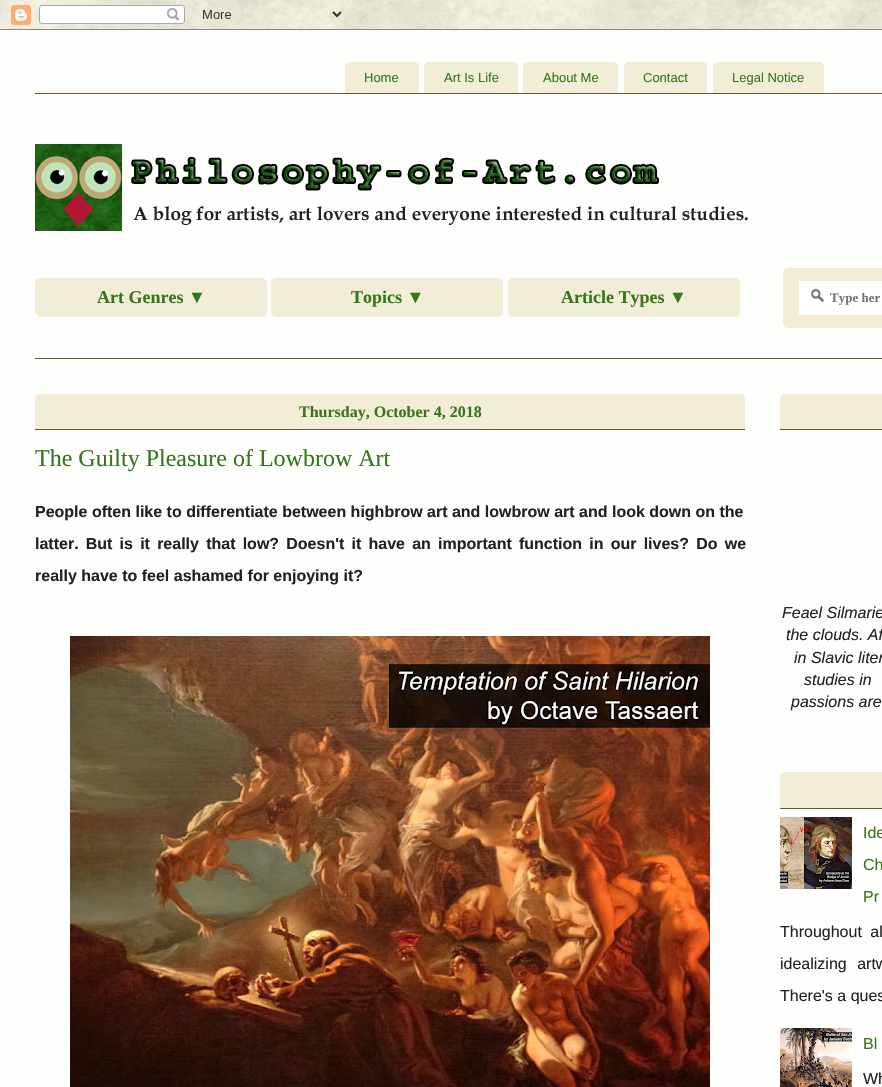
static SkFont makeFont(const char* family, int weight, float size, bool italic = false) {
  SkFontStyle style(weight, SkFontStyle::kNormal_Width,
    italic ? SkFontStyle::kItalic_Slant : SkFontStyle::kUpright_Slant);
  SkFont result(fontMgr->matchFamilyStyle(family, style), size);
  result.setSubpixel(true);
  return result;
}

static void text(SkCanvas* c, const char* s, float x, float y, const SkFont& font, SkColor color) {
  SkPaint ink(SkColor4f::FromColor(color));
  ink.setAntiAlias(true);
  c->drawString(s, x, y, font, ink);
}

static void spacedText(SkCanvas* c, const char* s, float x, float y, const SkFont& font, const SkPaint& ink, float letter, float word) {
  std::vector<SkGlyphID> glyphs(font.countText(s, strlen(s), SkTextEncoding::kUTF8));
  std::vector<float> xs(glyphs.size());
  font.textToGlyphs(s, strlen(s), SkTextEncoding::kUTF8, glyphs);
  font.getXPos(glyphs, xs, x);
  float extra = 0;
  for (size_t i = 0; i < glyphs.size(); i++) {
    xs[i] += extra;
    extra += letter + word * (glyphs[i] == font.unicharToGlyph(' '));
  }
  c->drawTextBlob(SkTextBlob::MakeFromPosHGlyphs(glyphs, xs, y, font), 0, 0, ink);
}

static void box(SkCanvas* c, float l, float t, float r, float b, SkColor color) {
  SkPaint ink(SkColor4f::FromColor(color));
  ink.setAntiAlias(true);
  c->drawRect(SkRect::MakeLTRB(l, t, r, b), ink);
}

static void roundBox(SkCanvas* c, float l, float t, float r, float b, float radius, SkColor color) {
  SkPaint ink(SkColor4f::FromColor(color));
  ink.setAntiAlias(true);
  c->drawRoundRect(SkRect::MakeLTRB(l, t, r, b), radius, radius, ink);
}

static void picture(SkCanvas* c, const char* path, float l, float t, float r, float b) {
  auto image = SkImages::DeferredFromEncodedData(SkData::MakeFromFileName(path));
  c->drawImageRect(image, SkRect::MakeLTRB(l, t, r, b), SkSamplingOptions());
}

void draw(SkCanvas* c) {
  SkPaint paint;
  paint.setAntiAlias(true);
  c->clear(0xffffffff);
  picture(c, "img_01.png", 0, 0, 882, 29);
  picture(c, "img_02.png", 0, 0, 882, 30);
  box(c, 0, 30, 882, 1087, 0xfffefefc);
  box(c, 35, 93, 882, 94, 0xff72532f);
  paint.setColor(0xfff2edd7);
  c->drawPath(SkPathBuilder().moveTo(350, 62).lineTo(414, 62).cubicTo(417, 62, 419, 64, 419, 67).lineTo(419, 93).lineTo(345, 93).lineTo(345, 67).cubicTo(345, 64, 347, 62, 350, 62).close().detach(), paint);
  SkFont face1 = makeFont("Liberation Sans", 400, 13);
  text(c, "Home", 364, 82, face1, 0xff38761d);
  c->drawPath(SkPathBuilder().moveTo(429, 62).lineTo(513, 62).cubicTo(516, 62, 518, 64, 518, 67).lineTo(518, 93).lineTo(424, 93).lineTo(424, 67).cubicTo(424, 64, 426, 62, 429, 62).close().detach(), paint);
  text(c, "Art Is Life", 444, 82, face1, 0xff38761d);
  c->drawPath(SkPathBuilder().moveTo(528, 62).lineTo(613, 62).cubicTo(616, 62, 618, 64, 618, 67).lineTo(618, 93).lineTo(523, 93).lineTo(523, 67).cubicTo(523, 64, 525, 62, 528, 62).close().detach(), paint);
  text(c, "About Me", 543, 82, face1, 0xff38761d);
  c->drawPath(SkPathBuilder().moveTo(629, 62).lineTo(702, 62).cubicTo(705, 62, 707, 64, 707, 67).lineTo(707, 93).lineTo(624, 93).lineTo(624, 67).cubicTo(624, 64, 626, 62, 629, 62).close().detach(), paint);
  text(c, "Contact", 643, 82, face1, 0xff38761d);
  c->drawPath(SkPathBuilder().moveTo(718, 62).lineTo(819, 62).cubicTo(822, 62, 824, 64, 824, 67).lineTo(824, 93).lineTo(713, 93).lineTo(713, 67).cubicTo(713, 64, 715, 62, 718, 62).close().detach(), paint);
  text(c, "Legal Notice", 732, 82, face1, 0xff38761d);
  picture(c, "img_03.png", 35, 144, 748, 231);
  roundBox(c, 35, 278, 267, 317, 5, 0xfff2edd7);
  SkFont face2 = makeFont("Liberation Serif", 700, 18);
  text(c, "Art Genres ▼", 97, 303, face2, 0xff38761d);
  roundBox(c, 271, 278, 503, 317, 5, 0xfff2edd7);
  text(c, "Topics ▼", 351, 303, face2, 0xff38761d);
  roundBox(c, 508, 278, 740, 317, 5, 0xfff2edd7);
  text(c, "Article Types ▼", 561, 303, face2, 0xff38761d);
  c->drawRoundRect(SkRect::MakeLTRB(785, 270, 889, 326), 3, 3, paint);
  paint.setStyle(SkPaint::kStroke_Style);
  paint.setStrokeWidth(4);
  c->drawRoundRect(SkRect::MakeLTRB(785, 270, 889, 326), 3, 3, paint);
  box(c, 800, 282, 882, 314, 0xffffffff);
  picture(c, "img_04.png", 811, 289, 824, 303);
  paint.setStrokeWidth(1);
  paint.setColor(0xfffefefc);
  c->drawRect(SkRect::MakeLTRB(799.5f, 281.5f, 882.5f, 314.5f), paint);
  SkFont face3 = makeFont("Liberation Serif", 700, 13);
  text(c, "Type her", 830, 302, face3, 0xff757575);
  box(c, 35, 358, 882, 359, 0xff72532f);
  paint.setStyle(SkPaint::kFill_Style);
  paint.setColor(0xfff2edd7);
  c->drawPath(SkPathBuilder().moveTo(40, 394).lineTo(740, 394).cubicTo(743, 394, 745, 396, 745, 399).lineTo(745, 430).lineTo(35, 430).lineTo(35, 399).cubicTo(35, 396, 37, 394, 40, 394).close().detach(), paint);
  box(c, 35, 429, 745, 430, 0xff72532f);
  SkFont face4 = makeFont("Liberation Serif", 700, 16);
  text(c, "Thursday, October 4, 2018", 299, 417, face4, 0xff38761d);
  SkFont face5 = makeFont("Liberation Serif", 400, 24);
  text(c, "The Guilty Pleasure of Lowbrow Art", 35, 466, face5, 0xff38761d);
  SkFont face6 = makeFont("Liberation Sans", 700, 16);
  text(c, "People often like to differentiate between highbrow art and lowbrow art and look down on the", 35, 517, face6, 0xff222222);
  paint.setColor(0xff222222);
  spacedText(c, "latter. But is it really that low? Doesn't it have an important function in our lives? Do we", 35, 549, face6, paint, 0, 2.75f);
  text(c, "really have to feel ashamed for enjoying it?", 35, 581, face6, 0xff222222);
  picture(c, "img_05.png", 70, 636, 710, 1087);
  paint.setColor(0xfff2edd7);
  c->drawPath(SkPathBuilder().moveTo(785, 394).lineTo(882, 394).cubicTo(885, 394, 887, 396, 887, 399).lineTo(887, 430).lineTo(780, 430).lineTo(780, 399).cubicTo(780, 396, 782, 394, 785, 394).close().detach(), paint);
  box(c, 780, 429, 882, 430, 0xff72532f);
  SkFont face7 = makeFont("Liberation Sans", 400, 16, true);
  text(c, "Feael Silmarie", 782, 618, face7, 0xff222222);
  text(c, "the clouds. Af", 786, 640, face7, 0xff222222);
  text(c, "in Slavic liter", 794, 663, face7, 0xff222222);
  text(c, "studies in", 804, 685, face7, 0xff222222);
  text(c, "passions are", 791, 707, face7, 0xff222222);
  c->drawPath(SkPathBuilder().moveTo(785, 772).lineTo(882, 772).cubicTo(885, 772, 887, 774, 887, 777).lineTo(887, 809).lineTo(780, 809).lineTo(780, 777).cubicTo(780, 774, 782, 772, 785, 772).close().detach(), paint);
  box(c, 780, 808, 882, 809, 0xff72532f);
  picture(c, "img_06.png", 780, 817, 852, 889);
  SkFont face8 = makeFont("Liberation Sans", 400, 16);
  paint.setColor(0xff38761d);
  spacedText(c, "Ide", 863, 838, face8, paint, 0, 6);
  spacedText(c, "Ch", 863, 870, face8, paint, 0, 7);
  text(c, "Pr", 863, 902, face8, 0xff38761d);
  paint.setColor(0xff222222);
  spacedText(c, "Throughout al", 780, 937, face8, paint, 0, 4);
  spacedText(c, "idealizing artw", 780, 969, face8, paint, 0, 6);
  text(c, "There's a ques", 780, 1001, face8, 0xff222222);
  picture(c, "img_07.png", 780, 1028, 852, 1087);
  text(c, "Bl", 863, 1049, face8, 0xff38761d);
  spacedText(c, "Wh", 863, 1084, face8, paint, 0, 7);
}
